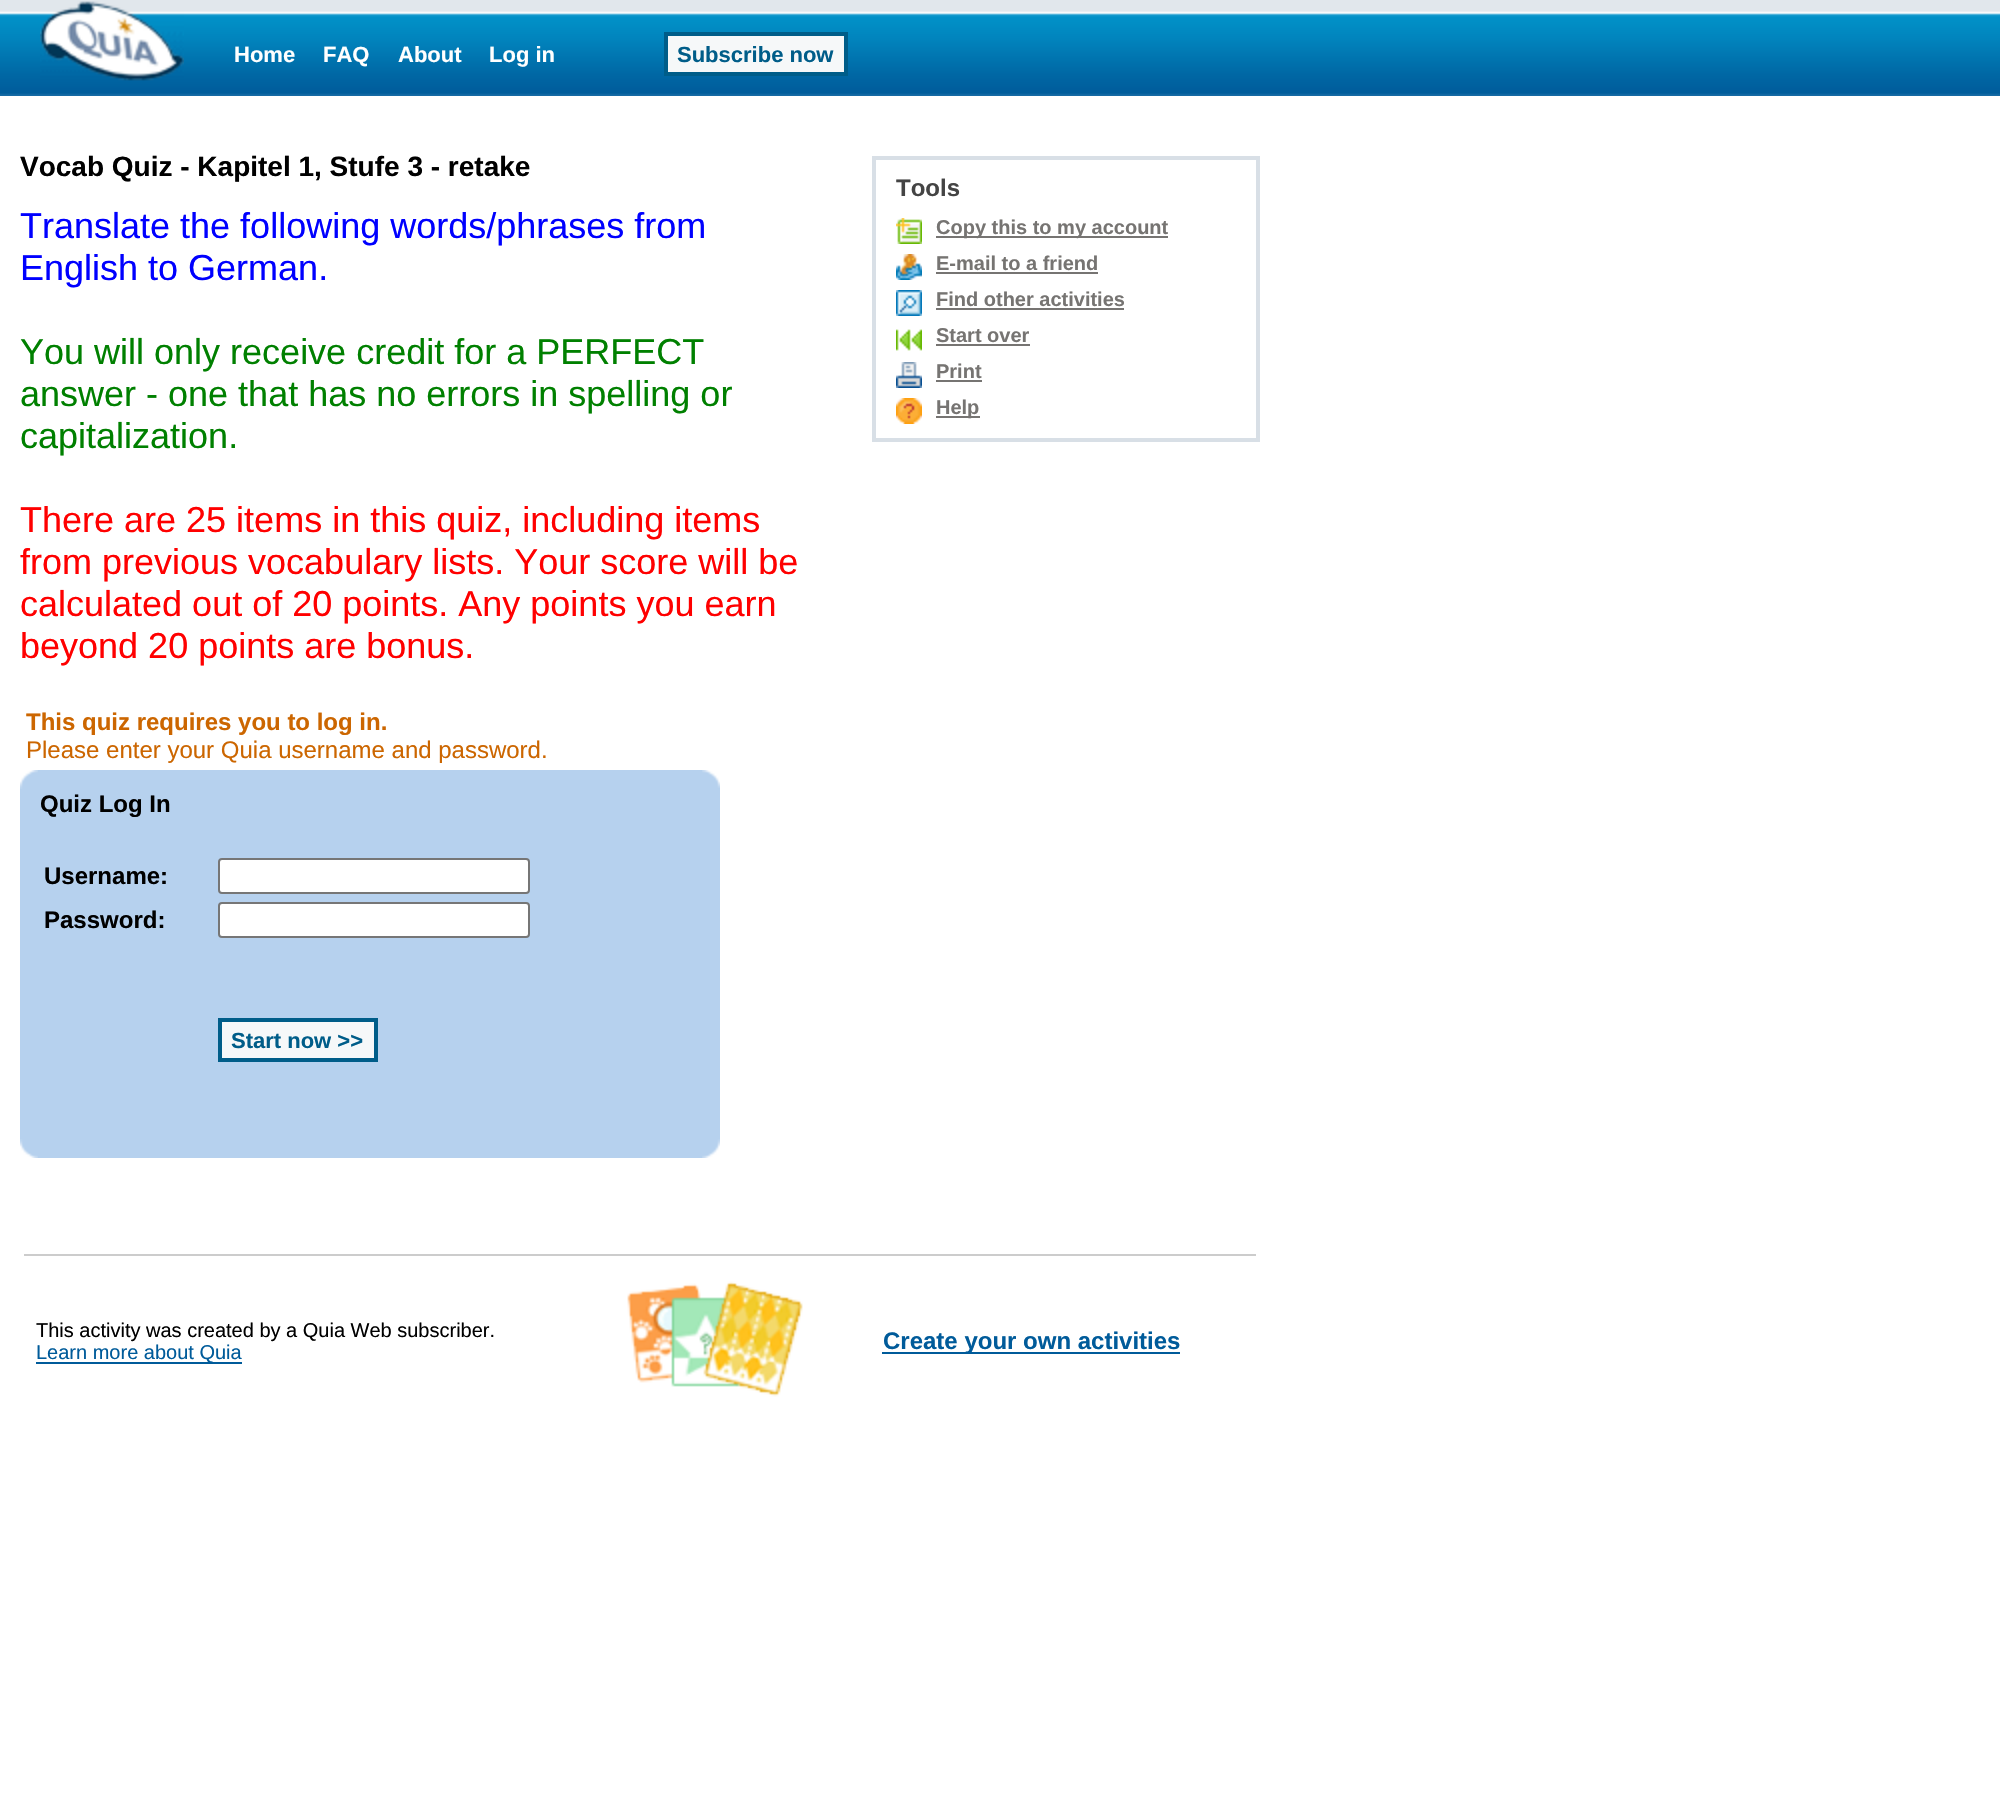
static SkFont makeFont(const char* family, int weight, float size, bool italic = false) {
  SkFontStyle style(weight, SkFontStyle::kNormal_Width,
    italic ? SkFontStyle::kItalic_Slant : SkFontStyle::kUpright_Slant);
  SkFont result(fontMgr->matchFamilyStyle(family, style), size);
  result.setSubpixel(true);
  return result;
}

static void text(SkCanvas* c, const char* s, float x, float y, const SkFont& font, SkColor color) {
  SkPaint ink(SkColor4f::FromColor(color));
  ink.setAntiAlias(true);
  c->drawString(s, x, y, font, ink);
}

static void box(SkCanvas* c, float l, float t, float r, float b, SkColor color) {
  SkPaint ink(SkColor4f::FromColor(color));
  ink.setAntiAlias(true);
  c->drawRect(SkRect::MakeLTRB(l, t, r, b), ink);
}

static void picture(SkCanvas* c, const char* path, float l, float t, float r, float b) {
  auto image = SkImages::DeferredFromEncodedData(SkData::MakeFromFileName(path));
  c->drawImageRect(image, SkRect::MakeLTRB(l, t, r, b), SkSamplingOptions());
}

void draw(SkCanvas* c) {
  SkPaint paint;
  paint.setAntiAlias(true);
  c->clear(0xffffffff);
  picture(c, "img_01.png", 0, 0, 2000, 96);
  picture(c, "img_02.png", 40, 1, 184, 81);
  SkFont face1 = makeFont("Liberation Sans", 700, 22);
  text(c, "Home", 234, 62, face1, 0xffffffff);
  text(c, "FAQ", 323, 62, face1, 0xffffffff);
  text(c, "About", 398, 62, face1, 0xffffffff);
  text(c, "Log in", 489, 62, face1, 0xffffffff);
  paint.setColor(0xfff6f8f9);
  c->drawRect(SkRect::MakeLTRB(666, 34, 846, 74), paint);
  paint.setStyle(SkPaint::kStroke_Style);
  paint.setStrokeWidth(4);
  paint.setColor(0xff005d89);
  c->drawRect(SkRect::MakeLTRB(666, 34, 846, 74), paint);
  text(c, "Subscribe now", 677, 62, face1, 0xff005d89);
  SkFont face2 = makeFont("Liberation Sans", 700, 28);
  text(c, "Vocab Quiz - Kapitel 1, Stufe 3 - retake", 20, 176, face2, 0xff000000);
  SkFont face3 = makeFont("Liberation Sans", 400, 36);
  text(c, "Translate the following words/phrases from", 20, 238, face3, 0xff0000ff);
  text(c, "English to German.", 20, 280, face3, 0xff0000ff);
  text(c, "You will only receive credit for a PERFECT", 20, 364, face3, 0xff008000);
  text(c, "answer - one that has no errors in spelling or", 20, 406, face3, 0xff008000);
  text(c, "capitalization.", 20, 448, face3, 0xff008000);
  text(c, "There are 25 items in this quiz, including items", 20, 532, face3, 0xffff0000);
  text(c, "from previous vocabulary lists. Your score will be", 20, 574, face3, 0xffff0000);
  text(c, "calculated out of 20 points. Any points you earn", 20, 616, face3, 0xffff0000);
  text(c, "beyond 20 points are bonus.", 20, 658, face3, 0xffff0000);
  SkFont face4 = makeFont("Liberation Sans", 700, 24);
  text(c, "This quiz requires you to log in.", 26, 730, face4, 0xffcc6600);
  SkFont face5 = makeFont("Liberation Sans", 400, 24);
  text(c, "Please enter your Quia username and password.", 26, 758, face5, 0xffcc6600);
  box(c, 20, 770, 720, 790, 0xffb6d1ee);
  picture(c, "img_03.png", 20, 770, 38, 789);
  picture(c, "img_04.png", 702, 770, 720, 788);
  box(c, 20, 790, 720, 1138, 0xffb6d1ee);
  text(c, "Quiz Log In", 40, 812, face4, 0xff000000);
  text(c, "Username:", 44, 884, face4, 0xff000000);
  paint.setStyle(SkPaint::kFill_Style);
  paint.setColor(0xffffffff);
  c->drawRoundRect(SkRect::MakeLTRB(219, 859, 529, 893), 3, 3, paint);
  paint.setStyle(SkPaint::kStroke_Style);
  paint.setStrokeWidth(2);
  paint.setColor(0xff767676);
  c->drawRoundRect(SkRect::MakeLTRB(219, 859, 529, 893), 3, 3, paint);
  text(c, "Password:", 44, 928, face4, 0xff000000);
  paint.setStyle(SkPaint::kFill_Style);
  paint.setColor(0xffffffff);
  c->drawRoundRect(SkRect::MakeLTRB(219, 903, 529, 937), 3, 3, paint);
  paint.setStyle(SkPaint::kStroke_Style);
  paint.setColor(0xff767676);
  c->drawRoundRect(SkRect::MakeLTRB(219, 903, 529, 937), 3, 3, paint);
  paint.setStyle(SkPaint::kFill_Style);
  paint.setColor(0xfff6f8f9);
  c->drawRect(SkRect::MakeLTRB(220, 1020, 376, 1060), paint);
  paint.setStyle(SkPaint::kStroke_Style);
  paint.setStrokeWidth(4);
  paint.setColor(0xff005d89);
  c->drawRect(SkRect::MakeLTRB(220, 1020, 376, 1060), paint);
  text(c, "Start now >>", 231, 1048, face1, 0xff005d89);
  box(c, 20, 1138, 720, 1158, 0xffb6d1ee);
  picture(c, "img_05.png", 20, 1139, 38, 1158);
  picture(c, "img_06.png", 702, 1139, 720, 1158);
  paint.setColor(0xffd8dfe6);
  c->drawRect(SkRect::MakeLTRB(874, 158, 1258, 440), paint);
  text(c, "Tools", 896, 196, face4, 0xff444444);
  picture(c, "img_07.png", 896, 218, 922, 244);
  box(c, 936, 236, 1168, 238, 0xff767472);
  SkFont face6 = makeFont("Liberation Sans", 700, 20);
  text(c, "Copy this to my account", 936, 234, face6, 0xff767472);
  picture(c, "img_08.png", 896, 254, 922, 280);
  text(c, "E-mail to a friend", 936, 270, face6, 0xff767472);
  box(c, 936, 272, 1098, 274, 0xff767472);
  picture(c, "img_09.png", 896, 290, 922, 316);
  text(c, "Find other activities", 936, 306, face6, 0xff767472);
  box(c, 936, 308, 1124, 310, 0xff767472);
  picture(c, "img_10.png", 896, 329, 922, 351);
  text(c, "Start over", 936, 342, face6, 0xff767472);
  box(c, 936, 344, 1030, 346, 0xff767472);
  picture(c, "img_11.png", 896, 362, 922, 388);
  text(c, "Print", 936, 378, face6, 0xff767472);
  box(c, 936, 380, 982, 382, 0xff767472);
  picture(c, "img_12.png", 896, 398, 922, 424);
  box(c, 936, 416, 980, 418, 0xff767472);
  text(c, "Help", 936, 414, face6, 0xff767472);
  box(c, 24, 1254, 1256, 1256, 0xffcccccc);
  SkFont face7 = makeFont("Liberation Sans", 400, 20);
  text(c, "This activity was created by a Quia Web subscriber.", 36, 1337, face7, 0xff000000);
  box(c, 36, 1362, 242, 1364, 0xff005b9a);
  text(c, "Learn more about Quia", 36, 1359, face7, 0xff005b9a);
  picture(c, "img_13.png", 627, 1281, 803, 1397);
  box(c, 882, 1352, 1180, 1354, 0xff005b9a);
  text(c, "Create your own activities", 883, 1349, face4, 0xff005b9a);
}
